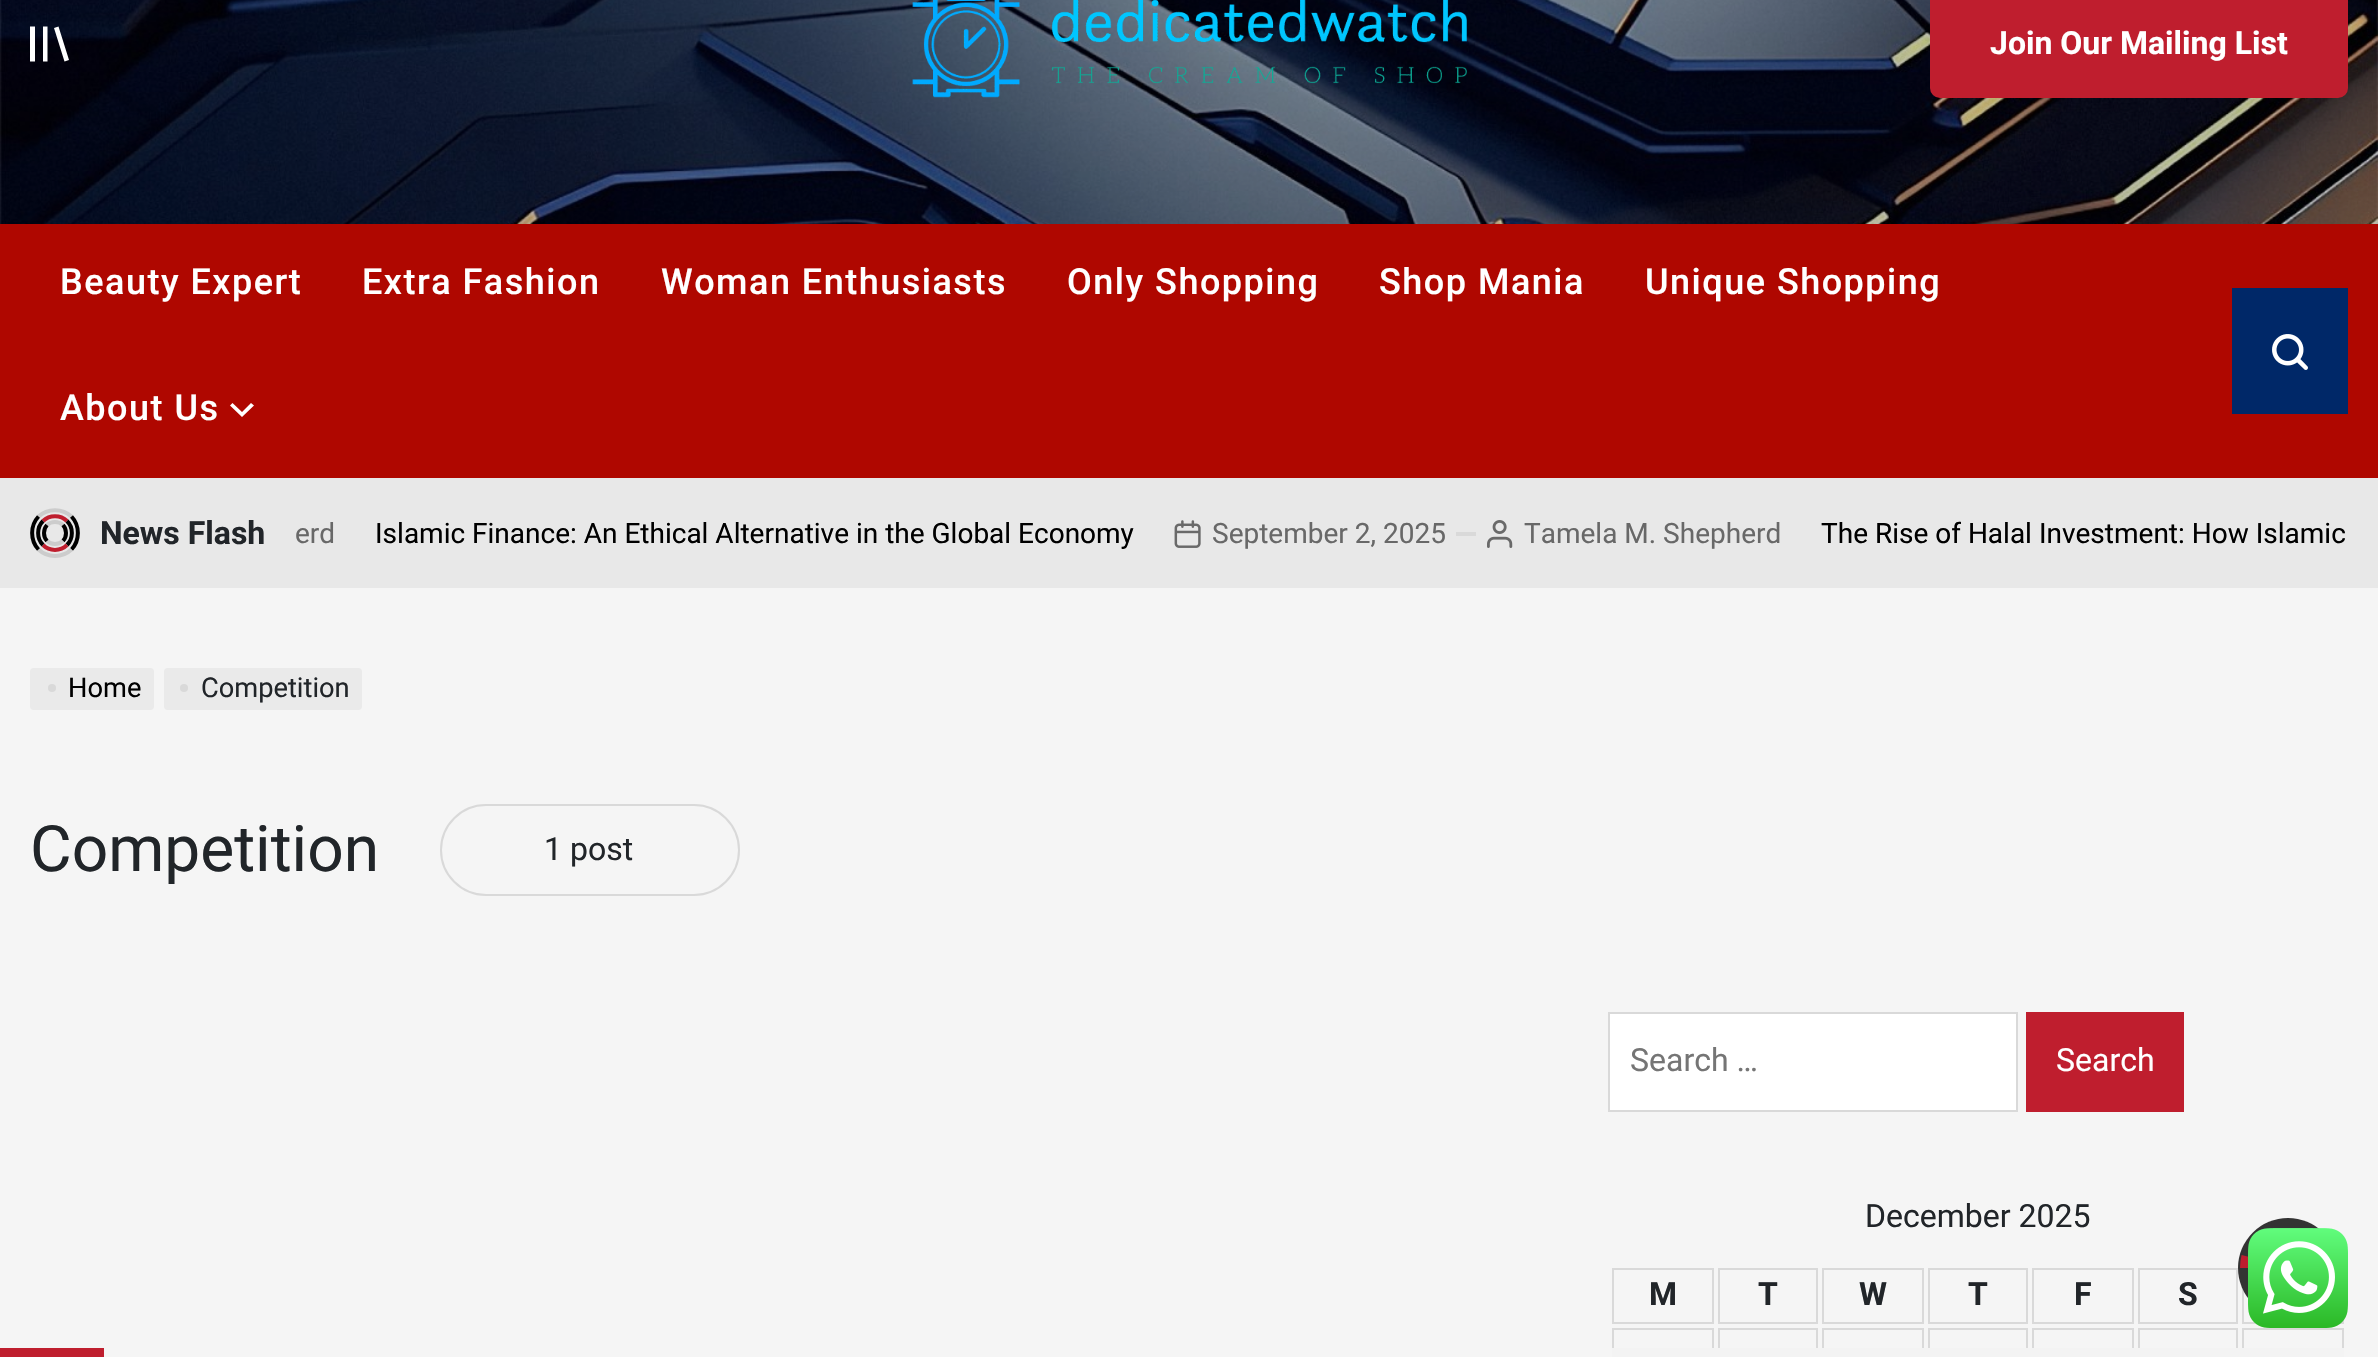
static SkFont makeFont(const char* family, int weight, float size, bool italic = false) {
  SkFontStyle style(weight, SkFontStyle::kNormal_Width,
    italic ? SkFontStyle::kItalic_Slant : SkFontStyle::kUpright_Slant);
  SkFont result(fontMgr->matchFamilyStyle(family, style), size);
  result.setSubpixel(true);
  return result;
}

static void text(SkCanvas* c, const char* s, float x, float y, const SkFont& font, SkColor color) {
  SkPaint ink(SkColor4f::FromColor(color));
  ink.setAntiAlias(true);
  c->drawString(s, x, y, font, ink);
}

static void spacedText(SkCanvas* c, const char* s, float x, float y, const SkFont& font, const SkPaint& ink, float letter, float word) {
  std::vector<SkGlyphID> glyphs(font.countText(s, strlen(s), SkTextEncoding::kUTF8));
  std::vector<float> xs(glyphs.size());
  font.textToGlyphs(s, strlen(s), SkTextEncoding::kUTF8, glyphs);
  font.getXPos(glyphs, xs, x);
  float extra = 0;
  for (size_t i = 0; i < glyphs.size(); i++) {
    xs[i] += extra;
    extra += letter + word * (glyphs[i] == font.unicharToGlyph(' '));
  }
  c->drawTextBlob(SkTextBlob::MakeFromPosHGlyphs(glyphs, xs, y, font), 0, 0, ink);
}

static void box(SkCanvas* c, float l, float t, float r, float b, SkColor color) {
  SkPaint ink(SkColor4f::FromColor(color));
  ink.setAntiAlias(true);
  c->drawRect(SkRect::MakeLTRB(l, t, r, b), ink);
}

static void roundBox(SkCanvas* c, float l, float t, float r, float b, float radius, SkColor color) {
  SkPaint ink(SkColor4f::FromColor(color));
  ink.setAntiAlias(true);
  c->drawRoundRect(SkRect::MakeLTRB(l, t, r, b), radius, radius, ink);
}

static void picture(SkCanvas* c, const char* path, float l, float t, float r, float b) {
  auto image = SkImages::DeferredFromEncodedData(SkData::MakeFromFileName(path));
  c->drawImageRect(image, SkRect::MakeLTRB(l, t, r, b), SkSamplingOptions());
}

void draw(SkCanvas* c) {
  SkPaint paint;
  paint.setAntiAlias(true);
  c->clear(0xfff5f5f5);
  picture(c, "img_01.png", 0, 0, 2378, 224);
  box(c, 0, 0, 2378, 224, 0x40000000);
  paint.setColor(0xffffffff);
  c->drawPath(SkPathBuilder().moveTo(43, 61.5f).lineTo(43, 26.5f).lineTo(47.5f, 26.5f).lineTo(47.5f, 61.5f).close().moveTo(64.5f, 61.5f).lineTo(54, 28).lineTo(58.5f, 26.5f).lineTo(69, 60).close().moveTo(30, 61.5f).lineTo(30, 26.5f).lineTo(35, 26.5f).lineTo(35, 61.5f).close().detach(), paint);
  picture(c, "img_02.png", 912, 0, 1467, 98);
  roundBox(c, 1930, -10, 2348, 98, 10, 0xffbf1e2e);
  SkFont face1 = makeFont("Roboto", 700, 32);
  text(c, "Join Our Mailing List", 1990, 54, face1, 0xffffffff);
  box(c, 0, 224, 2378, 478, 0xffaf0700);
  SkFont face2 = makeFont("Roboto", 500, 36);
  spacedText(c, "Beauty Expert", 60, 294, face2, paint, 1.5f, 0);
  spacedText(c, "Extra Fashion", 362, 294, face2, paint, 1.5f, 0);
  spacedText(c, "Woman Enthusiasts", 661, 294, face2, paint, 1.5f, 0);
  spacedText(c, "Only Shopping", 1067, 294, face2, paint, 1.5f, 0);
  spacedText(c, "Shop Mania", 1379, 294, face2, paint, 1.5f, 0);
  spacedText(c, "Unique Shopping", 1645, 294, face2, paint, 1.5f, 0);
  spacedText(c, "About Us", 60, 420, face2, paint, 1.5f, 0);
  c->drawPath(SkPathBuilder().moveTo(242, 412).lineTo(251, 403).lineTo(254, 405.5f).lineTo(242, 417).lineTo(230, 405.5f).lineTo(232.5f, 403).close().detach(), paint);
  box(c, 2232, 288, 2348, 414, 0xff002868);
  picture(c, "img_03.png", 2272, 334, 2308, 370);
  box(c, 0, 478, 2378, 588, 0xffe8e8e8);
  paint.setStyle(SkPaint::kStroke_Style);
  paint.setStrokeWidth(4);
  paint.setColor(0xffcccccc);
  c->drawPath(SkPathBuilder().moveTo(38.5f, 516.5f).cubicTo(47.5f, 508, 62.5f, 508, 71.5f, 516.5f).detach(), paint);
  paint.setColor(0xff000000);
  c->drawPath(SkPathBuilder().moveTo(71.5f, 516.5f).cubicTo(80, 525.5f, 80, 540.5f, 71.5f, 549.5f).detach(), paint);
  paint.setColor(0xffcccccc);
  c->drawPath(SkPathBuilder().moveTo(71.5f, 549.5f).cubicTo(62.5f, 558, 47.5f, 558, 38.5f, 549.5f).detach(), paint);
  paint.setColor(0xff000000);
  c->drawPath(SkPathBuilder().moveTo(38.5f, 549.5f).cubicTo(30, 540.5f, 30, 525.5f, 38.5f, 516.5f).detach(), paint);
  paint.setColor(0xffbf1e2e);
  c->drawPath(SkPathBuilder().moveTo(43, 521).cubicTo(49.5f, 514.5f, 60.5f, 514.5f, 67, 521).detach(), paint);
  paint.setColor(0xff000000);
  c->drawPath(SkPathBuilder().moveTo(67, 521).cubicTo(73.5f, 527.5f, 73.5f, 538.5f, 67, 545).detach(), paint);
  paint.setColor(0xffbf1e2e);
  c->drawPath(SkPathBuilder().moveTo(67, 545).cubicTo(60.5f, 551.5f, 49.5f, 551.5f, 43, 545).detach(), paint);
  paint.setColor(0xff000000);
  c->drawPath(SkPathBuilder().moveTo(43, 545).cubicTo(36.5f, 538.5f, 36.5f, 527.5f, 43, 521).detach(), paint);
  paint.setColor(0xffcccccc);
  c->drawPath(SkPathBuilder().moveTo(47, 525).cubicTo(51.5f, 521, 58.5f, 521, 63, 525).detach(), paint);
  paint.setColor(0xff000000);
  c->drawPath(SkPathBuilder().moveTo(63, 525).cubicTo(67, 529.5f, 67, 536.5f, 63, 541).detach(), paint);
  paint.setColor(0xffcccccc);
  c->drawPath(SkPathBuilder().moveTo(63, 541).cubicTo(58.5f, 545, 51.5f, 545, 47, 541).detach(), paint);
  paint.setColor(0xff000000);
  c->drawPath(SkPathBuilder().moveTo(47, 541).cubicTo(43, 536.5f, 43, 529.5f, 47, 525).detach(), paint);
  text(c, "News Flash", 100, 544, face1, 0xff212529);
  SkFont face3 = makeFont("Roboto", 400, 28);
  text(c, "erd", 295, 543, face3, 0xff686868);
  text(c, "Islamic Finance: An Ethical Alternative in the Global Economy", 375, 543, face3, 0xff000000);
  picture(c, "img_04.png", 1174, 520, 1201, 548);
  text(c, "September 2, 2025", 1212, 543, face3, 0xff686868);
  box(c, 1456, 532, 1476, 536, 0xffd9d9d9);
  picture(c, "img_05.png", 1487, 520, 1513, 548);
  text(c, "Tamela M. Shepherd", 1524, 543, face3, 0xff686868);
  text(c, "The Rise of Halal Investment: How Islamic", 1821, 543, face3, 0xff000000);
  roundBox(c, 30, 668, 154, 710, 4, 0xffeaeaea);
  paint.setStyle(SkPaint::kFill_Style);
  paint.setColor(0xffd9d9d9);
  c->drawCircle(52, 688, 4, paint);
  SkFont face4 = makeFont("Roboto", 400, 27.25f);
  text(c, "Home", 68, 697, face4, 0xff000000);
  roundBox(c, 164, 668, 362, 710, 4, 0xffeaeaea);
  c->drawCircle(184, 688, 4, paint);
  text(c, "Competition", 201, 697, face4, 0xff212529);
  SkFont face5 = makeFont("Roboto", 400, 64);
  text(c, "Competition", 30, 871, face5, 0xff212529);
  paint.setStyle(SkPaint::kStroke_Style);
  paint.setStrokeWidth(2);
  c->drawRoundRect(SkRect::MakeLTRB(441, 805, 739, 895), 45, 45, paint);
  SkFont face6 = makeFont("Roboto", 400, 32);
  text(c, "1 post", 544, 860, face6, 0xff212529);
  paint.setStyle(SkPaint::kFill_Style);
  paint.setColor(0xffffffff);
  c->drawRect(SkRect::MakeLTRB(1609, 1013, 2017, 1111), paint);
  paint.setStyle(SkPaint::kStroke_Style);
  paint.setColor(0xffd9d9d9);
  c->drawRect(SkRect::MakeLTRB(1609, 1013, 2017, 1111), paint);
  text(c, "Search …", 1630, 1071, face6, 0xff757575);
  box(c, 2026, 1012, 2184, 1112, 0xffbf1e2e);
  text(c, "Search", 2056, 1071, face6, 0xffffffff);
  text(c, "December 2025", 1865, 1227, face6, 0xff212529);
  c->drawRect(SkRect::MakeLTRB(1613, 1269, 1713, 1323), paint);
  text(c, "M", 1649, 1305, face1, 0xff212529);
  c->drawRect(SkRect::MakeLTRB(1719, 1269, 1817, 1323), paint);
  text(c, "T", 1758, 1305, face1, 0xff212529);
  c->drawRect(SkRect::MakeLTRB(1823, 1269, 1923, 1323), paint);
  text(c, "W", 1859, 1305, face1, 0xff212529);
  c->drawRect(SkRect::MakeLTRB(1929, 1269, 2027, 1323), paint);
  text(c, "T", 1968, 1305, face1, 0xff212529);
  c->drawRect(SkRect::MakeLTRB(2033, 1269, 2133, 1323), paint);
  text(c, "F", 2074, 1305, face1, 0xff212529);
  c->drawRect(SkRect::MakeLTRB(2139, 1269, 2237, 1323), paint);
  text(c, "S", 2178, 1305, face1, 0xff212529);
  c->drawRect(SkRect::MakeLTRB(2243, 1269, 2343, 1323), paint);
  c->drawRect(SkRect::MakeLTRB(1613, 1329, 1713, 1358), paint);
  c->drawRect(SkRect::MakeLTRB(1719, 1329, 1817, 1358), paint);
  c->drawRect(SkRect::MakeLTRB(1823, 1329, 1923, 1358), paint);
  c->drawRect(SkRect::MakeLTRB(1929, 1329, 2027, 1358), paint);
  c->drawRect(SkRect::MakeLTRB(2033, 1329, 2133, 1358), paint);
  c->drawRect(SkRect::MakeLTRB(2139, 1329, 2237, 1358), paint);
  c->drawRect(SkRect::MakeLTRB(2243, 1329, 2343, 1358), paint);
  paint.setStyle(SkPaint::kFill_Style);
  paint.setColor(0xff333333);
  c->drawCircle(2288, 1268, 50, paint);
  paint.setStyle(SkPaint::kStroke_Style);
  paint.setStrokeWidth(8);
  paint.setColor(0xffbf1e2e);
  c->drawPath(SkPathBuilder().moveTo(2244, 1268).cubicTo(2244, 1264, 2244.5f, 1260, 2245.5f, 1256).detach(), paint);
  box(c, 1612, 1348, 2344, 1357, 0xfff3f3f3);
  box(c, 0, 1348, 104, 1357, 0xffbf1e2e);
  picture(c, "img_06.png", 2248, 1228, 2348, 1328);
}
